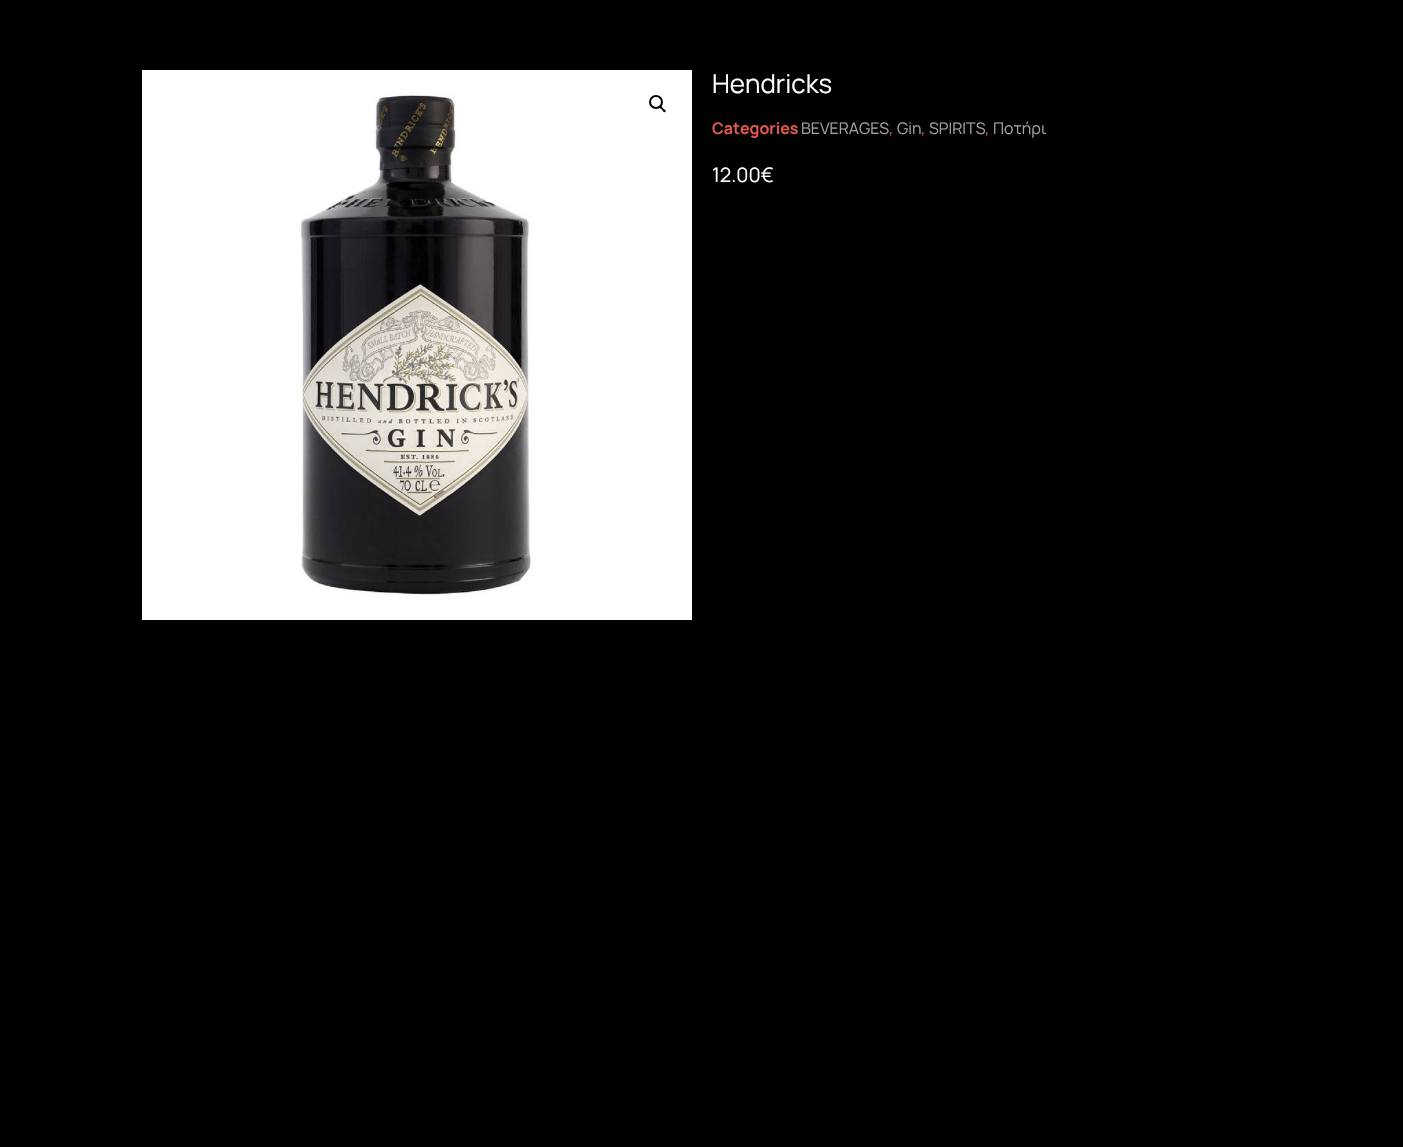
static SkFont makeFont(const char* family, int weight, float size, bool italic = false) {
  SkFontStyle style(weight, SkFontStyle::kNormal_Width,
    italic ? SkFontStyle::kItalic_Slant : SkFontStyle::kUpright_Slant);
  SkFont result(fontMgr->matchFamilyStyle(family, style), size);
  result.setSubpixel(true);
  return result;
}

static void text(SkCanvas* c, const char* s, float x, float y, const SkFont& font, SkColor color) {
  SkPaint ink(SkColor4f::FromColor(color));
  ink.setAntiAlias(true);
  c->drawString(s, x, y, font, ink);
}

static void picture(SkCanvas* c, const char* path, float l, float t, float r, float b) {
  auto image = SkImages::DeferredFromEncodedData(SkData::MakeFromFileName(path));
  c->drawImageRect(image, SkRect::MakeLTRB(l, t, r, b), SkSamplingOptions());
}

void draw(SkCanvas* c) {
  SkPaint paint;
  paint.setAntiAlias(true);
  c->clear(0xff000000);
  picture(c, "img_01.png", 142, 70, 692, 620);
  paint.setStyle(SkPaint::kStroke_Style);
  paint.setStrokeWidth(2);
  paint.setColor(0xff000000);
  c->drawCircle(656, 102, 6, paint);
  paint.setStyle(SkPaint::kFill_Style);
  c->drawPath(SkPathBuilder().moveTo(659.5f, 106).cubicTo(661, 105, 662.5f, 107.5f, 663, 108.5f).cubicTo(664, 109, 666.5f, 110.5f, 665.5f, 112).cubicTo(664, 113, 662.5f, 110.5f, 662, 109.5f).cubicTo(661, 109, 658.5f, 107.5f, 659.5f, 106).close().detach(), paint);
  SkFont face1 = makeFont("Manrope", 400, 26);
  text(c, "Hendricks", 712, 93, face1, 0xffffffff);
  SkFont face2 = makeFont("Manrope", 700, 16);
  text(c, "Categories", 712, 134, face2, 0xffe2584f);
  SkFont face3 = makeFont("Manrope", 400, 16);
  text(c, "BEVERAGES", 801, 134, face3, 0xffa2a2a2);
  text(c, ",", 889, 134, face3, 0xffe2584f);
  text(c, "Gin", 897, 134, face3, 0xffa2a2a2);
  text(c, ",", 921, 134, face3, 0xffe2584f);
  text(c, "SPIRITS", 929, 134, face3, 0xffa2a2a2);
  text(c, ",", 985, 134, face3, 0xffe2584f);
  text(c, "Ποτήρι", 993, 134, face3, 0xffa2a2a2);
  SkFont face4 = makeFont("Manrope", 400, 20);
  text(c, "12.00€", 712, 182, face4, 0xffffffff);
}
